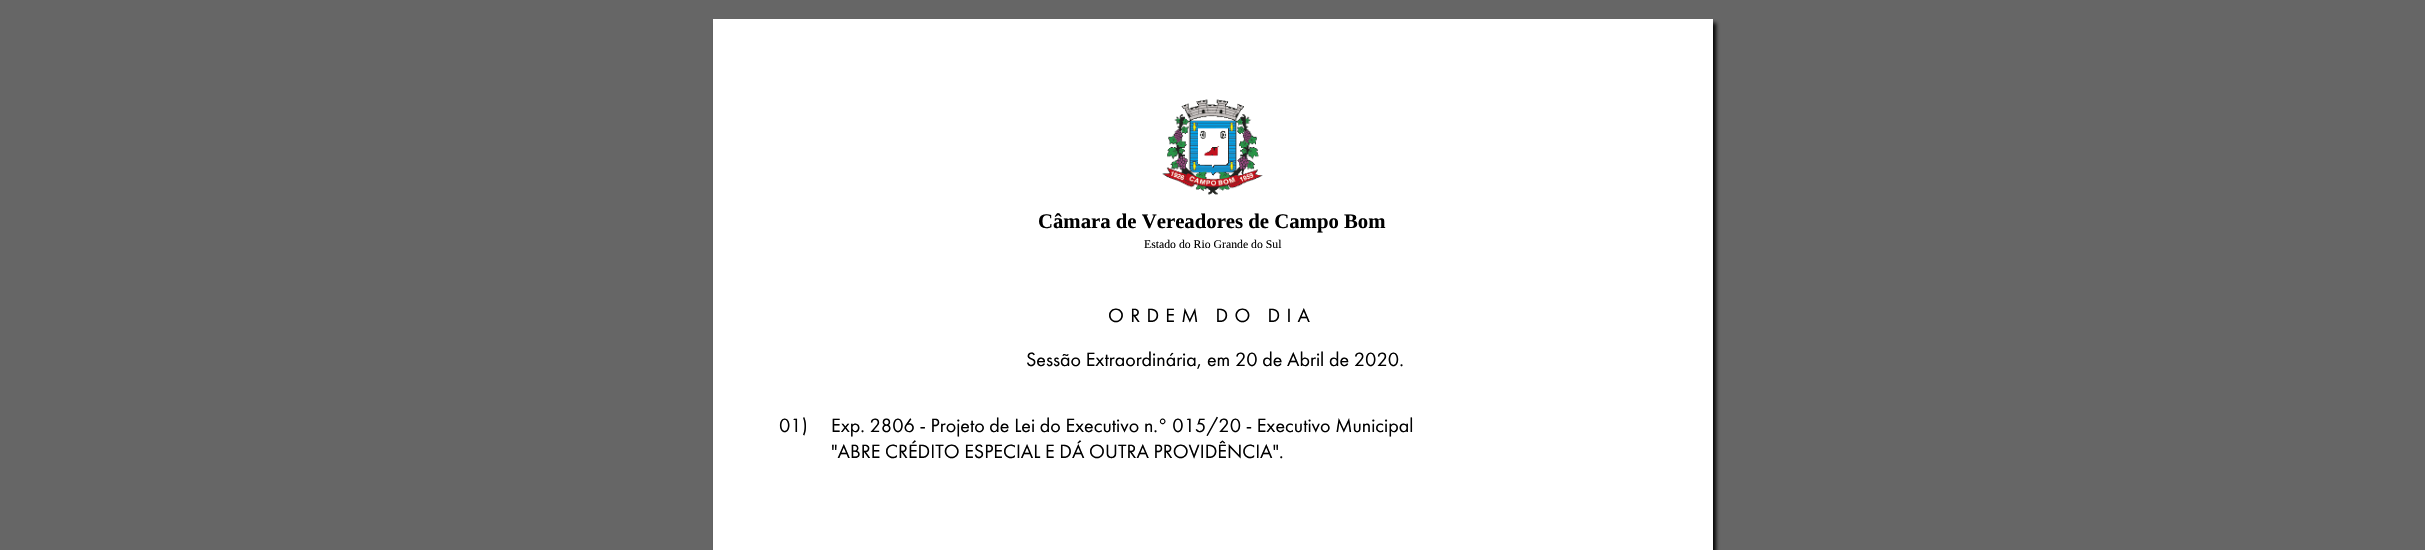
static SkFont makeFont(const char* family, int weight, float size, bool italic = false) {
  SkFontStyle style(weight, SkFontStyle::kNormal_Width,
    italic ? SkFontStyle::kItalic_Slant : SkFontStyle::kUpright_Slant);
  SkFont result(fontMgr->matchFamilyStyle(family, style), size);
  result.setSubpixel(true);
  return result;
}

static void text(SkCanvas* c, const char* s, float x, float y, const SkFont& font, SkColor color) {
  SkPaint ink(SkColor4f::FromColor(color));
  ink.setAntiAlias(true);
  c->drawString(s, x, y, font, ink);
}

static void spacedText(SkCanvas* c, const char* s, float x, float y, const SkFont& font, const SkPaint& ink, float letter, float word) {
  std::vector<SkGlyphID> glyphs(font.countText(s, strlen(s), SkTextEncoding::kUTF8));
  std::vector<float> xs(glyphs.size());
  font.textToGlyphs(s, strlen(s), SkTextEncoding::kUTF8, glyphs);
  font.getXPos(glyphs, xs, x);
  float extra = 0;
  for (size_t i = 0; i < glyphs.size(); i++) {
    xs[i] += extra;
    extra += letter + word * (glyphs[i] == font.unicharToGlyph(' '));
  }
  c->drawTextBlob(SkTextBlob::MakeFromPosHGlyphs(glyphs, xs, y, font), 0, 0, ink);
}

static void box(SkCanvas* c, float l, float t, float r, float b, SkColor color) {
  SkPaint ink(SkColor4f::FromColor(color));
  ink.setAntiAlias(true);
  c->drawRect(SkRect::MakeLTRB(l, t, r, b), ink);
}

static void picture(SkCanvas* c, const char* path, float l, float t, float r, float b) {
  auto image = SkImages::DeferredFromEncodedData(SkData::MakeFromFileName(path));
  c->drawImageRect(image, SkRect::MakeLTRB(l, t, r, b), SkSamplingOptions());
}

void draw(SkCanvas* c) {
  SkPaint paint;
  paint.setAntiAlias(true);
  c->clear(0xff666666);
  paint.setColor(0xff000000);
  paint.setMaskFilter(SkMaskFilter::MakeBlur(kNormal_SkBlurStyle, 2));
  c->drawRect(SkRect::MakeLTRB(716, 23, 1716, 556), paint);
  paint.setMaskFilter(nullptr);
  box(c, 713, 19, 1713, 550, 0xffffffff);
  picture(c, "img_01.png", 1162, 99, 1263, 195);
  SkFont face1 = makeFont("Liberation Serif", 700, 20.75f);
  text(c, "Câmara de Vereadores de Campo Bom", 1038, 228, face1, 0xff000000);
  SkFont face2 = makeFont("Liberation Serif", 400, 11.75f);
  text(c, "Estado do Rio Grande do Sul", 1144, 248, face2, 0xff000000);
  SkFont face3 = makeFont("Futura PT", 400, 20);
  spacedText(c, "ORDEM DO DIA", 1108, 322, face3, paint, 6.25f, 0);
  text(c, "Sessão Extraordinária, em 20 de Abril de 2020.", 1026, 366, face3, 0xff000000);
  text(c, "01)", 779, 432, face3, 0xff000000);
  text(c, "Exp. 2806 - Projeto de Lei do Executivo n.° 015/20 - Executivo Municipal", 831, 432, face3, 0xff000000);
  text(c, "\"ABRE CRÉDITO ESPECIAL E DÁ OUTRA PROVIDÊNCIA\".", 831, 458, face3, 0xff000000);
}
